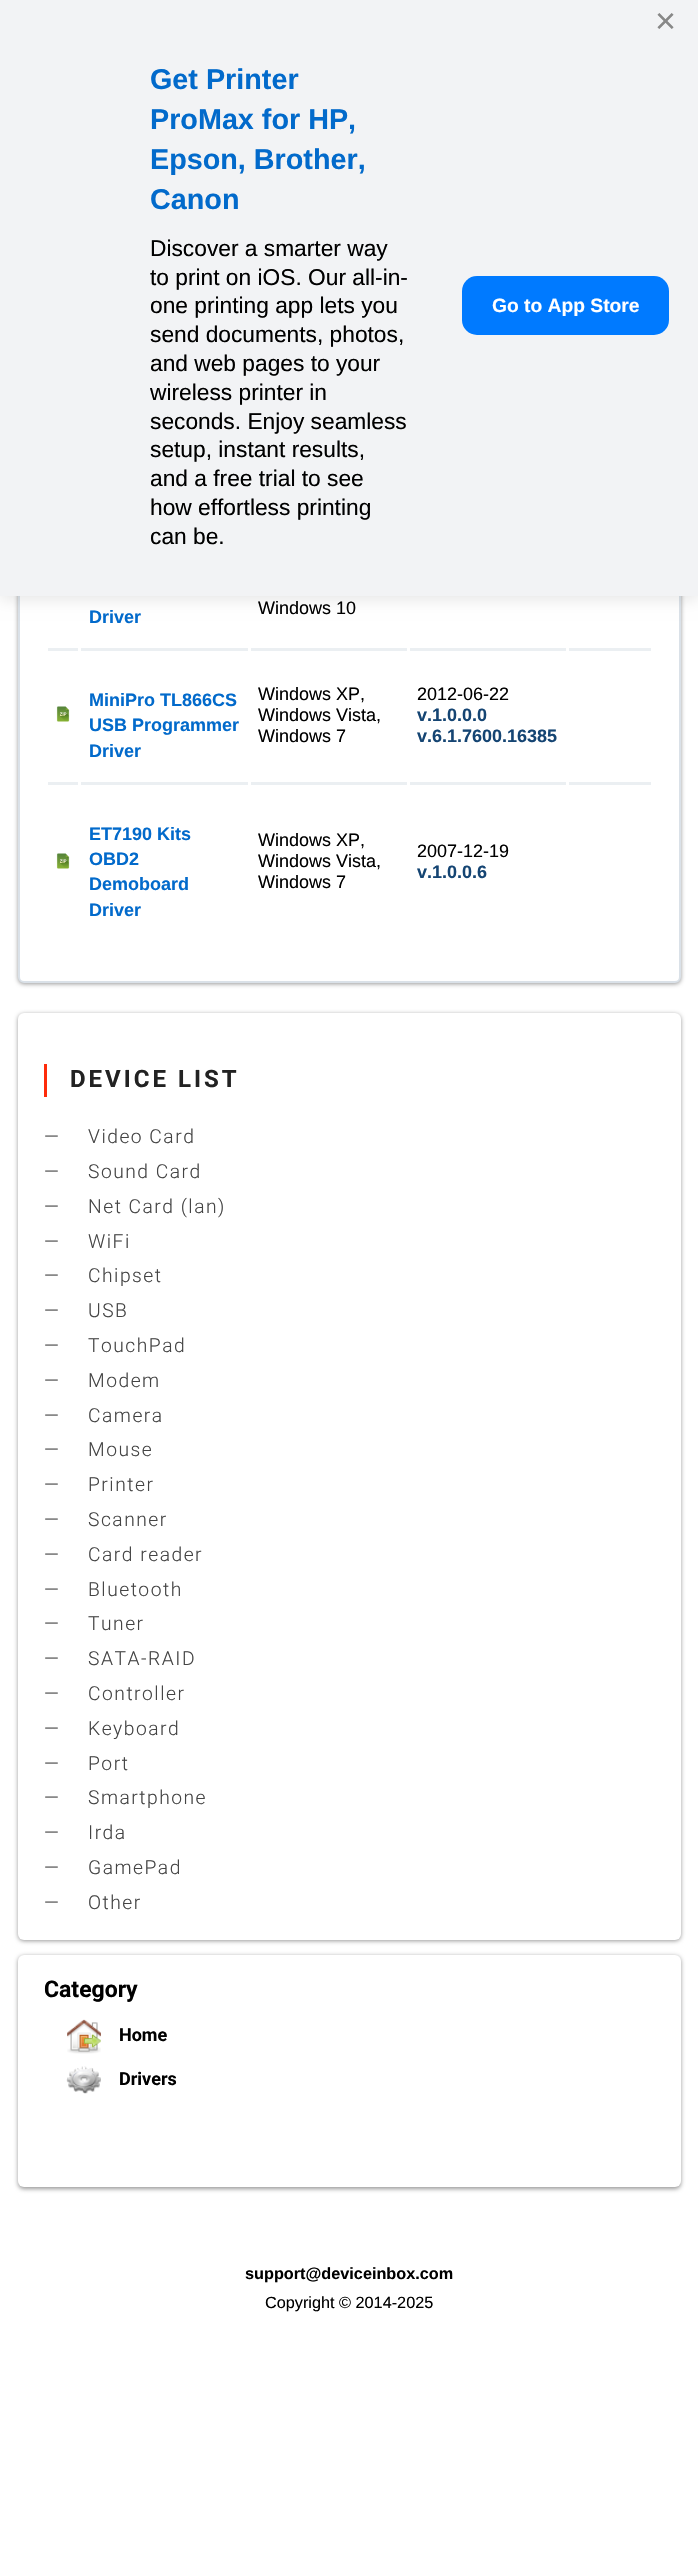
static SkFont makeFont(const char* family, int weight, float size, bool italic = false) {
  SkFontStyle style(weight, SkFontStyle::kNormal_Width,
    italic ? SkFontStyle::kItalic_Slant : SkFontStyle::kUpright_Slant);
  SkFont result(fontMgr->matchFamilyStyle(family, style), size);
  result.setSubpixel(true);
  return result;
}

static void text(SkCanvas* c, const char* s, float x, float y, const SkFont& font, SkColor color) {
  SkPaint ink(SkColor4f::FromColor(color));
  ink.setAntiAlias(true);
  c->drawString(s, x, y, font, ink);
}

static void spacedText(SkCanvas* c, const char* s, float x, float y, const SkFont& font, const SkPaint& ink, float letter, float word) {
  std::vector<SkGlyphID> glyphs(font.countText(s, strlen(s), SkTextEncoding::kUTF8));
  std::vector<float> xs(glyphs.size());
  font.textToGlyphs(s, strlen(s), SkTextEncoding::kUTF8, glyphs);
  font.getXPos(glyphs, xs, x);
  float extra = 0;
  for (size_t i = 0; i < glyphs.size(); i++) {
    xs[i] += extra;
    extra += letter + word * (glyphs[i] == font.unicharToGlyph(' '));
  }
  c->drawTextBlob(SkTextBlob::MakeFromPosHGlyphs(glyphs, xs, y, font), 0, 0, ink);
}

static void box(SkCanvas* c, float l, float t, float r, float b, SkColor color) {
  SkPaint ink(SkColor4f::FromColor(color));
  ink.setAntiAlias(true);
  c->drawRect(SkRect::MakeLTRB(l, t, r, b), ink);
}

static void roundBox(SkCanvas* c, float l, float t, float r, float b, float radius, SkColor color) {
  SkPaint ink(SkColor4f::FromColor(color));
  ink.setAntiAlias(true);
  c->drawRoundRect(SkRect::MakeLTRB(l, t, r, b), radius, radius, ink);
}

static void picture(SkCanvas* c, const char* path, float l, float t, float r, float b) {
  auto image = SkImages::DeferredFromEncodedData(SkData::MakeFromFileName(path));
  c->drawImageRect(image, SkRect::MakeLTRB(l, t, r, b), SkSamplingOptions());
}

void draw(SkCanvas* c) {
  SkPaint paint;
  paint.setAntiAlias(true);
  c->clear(0xffffffff);
  paint.setColor(0x66000000);
  paint.setMaskFilter(SkMaskFilter::MakeBlur(kNormal_SkBlurStyle, 2));
  c->drawRoundRect(SkRect::MakeLTRB(18, 264, 681, 984), 6, 6, paint);
  paint.setMaskFilter(nullptr);
  paint.setColor(0xffffffff);
  c->drawRoundRect(SkRect::MakeLTRB(19, 264, 680, 982), 5, 5, paint);
  paint.setStyle(SkPaint::kStroke_Style);
  paint.setStrokeWidth(2);
  paint.setColor(0xffdae1e8);
  c->drawRoundRect(SkRect::MakeLTRB(19, 264, 680, 982), 5, 5, paint);
  paint.setStyle(SkPaint::kFill_Style);
  paint.setColor(0x1a000000);
  paint.setMaskFilter(SkMaskFilter::MakeBlur(kNormal_SkBlurStyle, 7.5f));
  c->drawRect(SkRect::MakeLTRB(0, 3, 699, 599), paint);
  paint.setMaskFilter(nullptr);
  box(c, 0, 0, 698, 596, 0xfff2f3f5);
  SkFont face1 = makeFont("Liberation Sans", 400, 36);
  text(c, "×", 655, 33, face1, 0xff888888);
  SkFont face2 = makeFont("Liberation Sans", 700, 28.75f);
  text(c, "Get Printer", 150, 89, face2, 0xff026acb);
  text(c, "ProMax for HP,", 150, 129, face2, 0xff026acb);
  text(c, "Epson, Brother,", 150, 169, face2, 0xff026acb);
  text(c, "Canon", 150, 209, face2, 0xff026acb);
  SkFont face3 = makeFont("Liberation Sans", 400, 22.75f);
  text(c, "Discover a smarter way", 150, 256, face3, 0xff000000);
  text(c, "to print on iOS. Our all-in-", 150, 285, face3, 0xff000000);
  text(c, "one printing app lets you", 150, 313, face3, 0xff000000);
  text(c, "send documents, photos,", 150, 342, face3, 0xff000000);
  text(c, "and web pages to your", 150, 371, face3, 0xff000000);
  text(c, "wireless printer in", 150, 400, face3, 0xff000000);
  text(c, "seconds. Enjoy seamless", 150, 429, face3, 0xff000000);
  text(c, "setup, instant results,", 150, 457, face3, 0xff000000);
  text(c, "and a free trial to see", 150, 486, face3, 0xff000000);
  text(c, "how effortless printing", 150, 515, face3, 0xff000000);
  text(c, "can be.", 150, 544, face3, 0xff000000);
  roundBox(c, 462, 276, 669, 335, 15, 0xff007aff);
  SkFont face4 = makeFont("Liberation Sans", 700, 19.25f);
  text(c, "Go to App Store", 492, 312, face4, 0xffffffff);
  SkFont face5 = makeFont("Liberation Sans", 400, 18);
  text(c, "Windows 10", 258, 614, face5, 0xff000000);
  SkFont face6 = makeFont("Liberation Sans", 700, 18);
  text(c, "Driver", 89, 623, face6, 0xff026acb);
  box(c, 48, 648, 78, 651, 0xffebeff2);
  picture(c, "img_01.png", 56, 706, 70, 722);
  box(c, 569, 648, 651, 651, 0xffebeff2);
  box(c, 81, 648, 248, 651, 0xffebeff2);
  text(c, "MiniPro TL866CS", 89, 706, face6, 0xff026acb);
  text(c, "USB Programmer", 89, 731, face6, 0xff026acb);
  text(c, "Driver", 89, 757, face6, 0xff026acb);
  box(c, 251, 648, 407, 651, 0xffebeff2);
  text(c, "Windows XP,", 258, 700, face5, 0xff000000);
  text(c, "Windows Vista,", 258, 721, face5, 0xff000000);
  text(c, "Windows 7", 258, 742, face5, 0xff000000);
  box(c, 410, 648, 566, 651, 0xffebeff2);
  text(c, "2012-06-22", 417, 700, face5, 0xff000000);
  text(c, "v.1.0.0.0", 417, 721, face6, 0xff154573);
  text(c, "v.6.1.7600.16385", 417, 742, face6, 0xff154573);
  box(c, 48, 782, 78, 785, 0xffebeff2);
  picture(c, "img_01.png", 56, 853, 70, 869);
  box(c, 569, 782, 651, 785, 0xffebeff2);
  box(c, 81, 782, 248, 785, 0xffebeff2);
  text(c, "ET7190 Kits", 89, 840, face6, 0xff026acb);
  text(c, "OBD2", 89, 865, face6, 0xff026acb);
  text(c, "Demoboard", 89, 890, face6, 0xff026acb);
  text(c, "Driver", 89, 916, face6, 0xff026acb);
  box(c, 251, 782, 407, 785, 0xffebeff2);
  text(c, "Windows XP,", 258, 846, face5, 0xff000000);
  text(c, "Windows Vista,", 258, 867, face5, 0xff000000);
  text(c, "Windows 7", 258, 888, face5, 0xff000000);
  box(c, 410, 782, 566, 785, 0xffebeff2);
  text(c, "2007-12-19", 417, 857, face5, 0xff000000);
  text(c, "v.1.0.0.6", 417, 878, face6, 0xff154573);
  paint.setColor(0x66000000);
  paint.setMaskFilter(SkMaskFilter::MakeBlur(kNormal_SkBlurStyle, 2));
  c->drawRoundRect(SkRect::MakeLTRB(18, 1014, 681, 1941), 6, 6, paint);
  paint.setMaskFilter(nullptr);
  roundBox(c, 18, 1013, 681, 1940, 6, 0xffffffff);
  box(c, 44, 1064, 47, 1097, 0xfffe2b0a);
  SkFont face7 = makeFont("Roboto", 700, 24);
  paint.setColor(0xff222222);
  spacedText(c, "DEVICE LIST", 70, 1087, face7, paint, 3, 0);
  SkFont face8 = makeFont("Roboto", 300, 19.25f);
  paint.setColor(0xff444444);
  spacedText(c, "—", 44, 1143, face8, paint, 1.5f, 0);
  spacedText(c, "Video Card", 88, 1143, face8, paint, 1.5f, 0);
  spacedText(c, "—", 44, 1178, face8, paint, 1.5f, 0);
  spacedText(c, "Sound Card", 88, 1178, face8, paint, 1.5f, 0);
  spacedText(c, "—", 44, 1213, face8, paint, 1.5f, 0);
  spacedText(c, "Net Card (lan)", 88, 1213, face8, paint, 1.5f, 0);
  spacedText(c, "—", 44, 1248, face8, paint, 1.5f, 0);
  spacedText(c, "WiFi", 88, 1248, face8, paint, 1.5f, 0);
  spacedText(c, "—", 44, 1282, face8, paint, 1.5f, 0);
  spacedText(c, "Chipset", 88, 1282, face8, paint, 1.5f, 0);
  spacedText(c, "—", 44, 1317, face8, paint, 1.5f, 0);
  spacedText(c, "USB", 88, 1317, face8, paint, 1.5f, 0);
  spacedText(c, "—", 44, 1352, face8, paint, 1.5f, 0);
  spacedText(c, "TouchPad", 88, 1352, face8, paint, 1.5f, 0);
  spacedText(c, "—", 44, 1387, face8, paint, 1.5f, 0);
  spacedText(c, "Modem", 88, 1387, face8, paint, 1.5f, 0);
  spacedText(c, "—", 44, 1422, face8, paint, 1.5f, 0);
  spacedText(c, "Camera", 88, 1422, face8, paint, 1.5f, 0);
  spacedText(c, "—", 44, 1456, face8, paint, 1.5f, 0);
  spacedText(c, "Mouse", 88, 1456, face8, paint, 1.5f, 0);
  spacedText(c, "—", 44, 1491, face8, paint, 1.5f, 0);
  spacedText(c, "Printer", 88, 1491, face8, paint, 1.5f, 0);
  spacedText(c, "—", 44, 1526, face8, paint, 1.5f, 0);
  spacedText(c, "Scanner", 88, 1526, face8, paint, 1.5f, 0);
  spacedText(c, "—", 44, 1561, face8, paint, 1.5f, 0);
  spacedText(c, "Card reader", 88, 1561, face8, paint, 1.5f, 0);
  spacedText(c, "—", 44, 1596, face8, paint, 1.5f, 0);
  spacedText(c, "Bluetooth", 88, 1596, face8, paint, 1.5f, 0);
  spacedText(c, "—", 44, 1630, face8, paint, 1.5f, 0);
  spacedText(c, "Tuner", 88, 1630, face8, paint, 1.5f, 0);
  spacedText(c, "—", 44, 1665, face8, paint, 1.5f, 0);
  spacedText(c, "SATA-RAID", 88, 1665, face8, paint, 1.5f, 0);
  spacedText(c, "—", 44, 1700, face8, paint, 1.5f, 0);
  spacedText(c, "Controller", 88, 1700, face8, paint, 1.5f, 0);
  spacedText(c, "—", 44, 1735, face8, paint, 1.5f, 0);
  spacedText(c, "Keyboard", 88, 1735, face8, paint, 1.5f, 0);
  spacedText(c, "—", 44, 1770, face8, paint, 1.5f, 0);
  spacedText(c, "Port", 88, 1770, face8, paint, 1.5f, 0);
  spacedText(c, "—", 44, 1804, face8, paint, 1.5f, 0);
  spacedText(c, "Smartphone", 88, 1804, face8, paint, 1.5f, 0);
  spacedText(c, "—", 44, 1839, face8, paint, 1.5f, 0);
  spacedText(c, "Irda", 88, 1839, face8, paint, 1.5f, 0);
  spacedText(c, "—", 44, 1874, face8, paint, 1.5f, 0);
  spacedText(c, "GamePad", 88, 1874, face8, paint, 1.5f, 0);
  spacedText(c, "—", 44, 1909, face8, paint, 1.5f, 0);
  spacedText(c, "Other", 88, 1909, face8, paint, 1.5f, 0);
  paint.setColor(0x66000000);
  paint.setMaskFilter(SkMaskFilter::MakeBlur(kNormal_SkBlurStyle, 2));
  c->drawRoundRect(SkRect::MakeLTRB(18, 1956, 681, 2189), 6, 6, paint);
  paint.setMaskFilter(nullptr);
  roundBox(c, 18, 1955, 681, 2187, 6, 0xffffffff);
  SkFont face9 = makeFont("Roboto", 700, 23);
  text(c, "Category", 44, 1997, face9, 0xff000000);
  picture(c, "img_02.png", 67, 2019, 101, 2054);
  SkFont face10 = makeFont("Roboto", 700, 18);
  text(c, "Home", 119, 2041, face10, 0xff000000);
  picture(c, "img_03.png", 66, 2066, 101, 2094);
  text(c, "Drivers", 119, 2085, face10, 0xff000000);
  SkFont face11 = makeFont("Liberation Sans", 700, 16.25f);
  text(c, "support@deviceinbox.com", 245, 2279, face11, 0xff000000);
  SkFont face12 = makeFont("Liberation Sans", 400, 16.25f);
  text(c, "Copyright © 2014-2025", 265, 2308, face12, 0xff000000);
}
